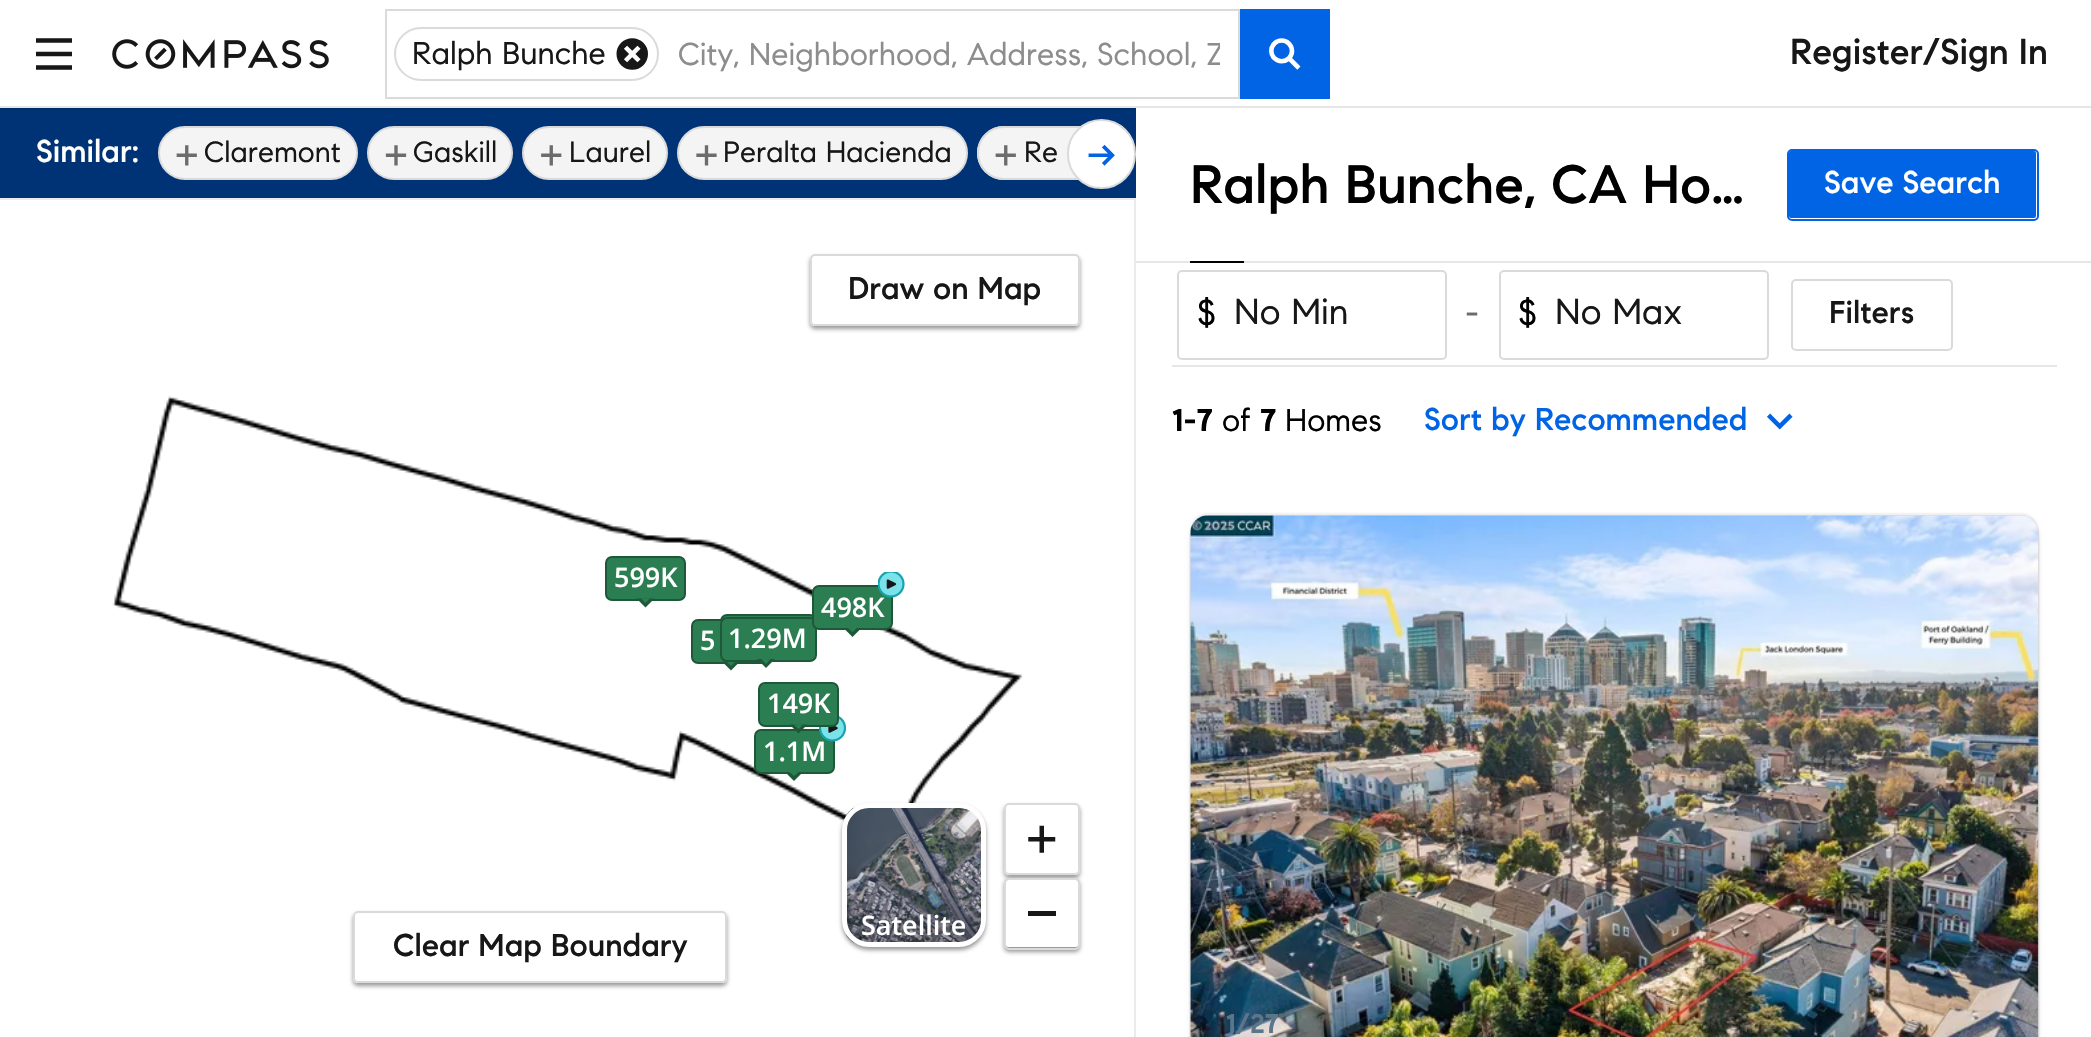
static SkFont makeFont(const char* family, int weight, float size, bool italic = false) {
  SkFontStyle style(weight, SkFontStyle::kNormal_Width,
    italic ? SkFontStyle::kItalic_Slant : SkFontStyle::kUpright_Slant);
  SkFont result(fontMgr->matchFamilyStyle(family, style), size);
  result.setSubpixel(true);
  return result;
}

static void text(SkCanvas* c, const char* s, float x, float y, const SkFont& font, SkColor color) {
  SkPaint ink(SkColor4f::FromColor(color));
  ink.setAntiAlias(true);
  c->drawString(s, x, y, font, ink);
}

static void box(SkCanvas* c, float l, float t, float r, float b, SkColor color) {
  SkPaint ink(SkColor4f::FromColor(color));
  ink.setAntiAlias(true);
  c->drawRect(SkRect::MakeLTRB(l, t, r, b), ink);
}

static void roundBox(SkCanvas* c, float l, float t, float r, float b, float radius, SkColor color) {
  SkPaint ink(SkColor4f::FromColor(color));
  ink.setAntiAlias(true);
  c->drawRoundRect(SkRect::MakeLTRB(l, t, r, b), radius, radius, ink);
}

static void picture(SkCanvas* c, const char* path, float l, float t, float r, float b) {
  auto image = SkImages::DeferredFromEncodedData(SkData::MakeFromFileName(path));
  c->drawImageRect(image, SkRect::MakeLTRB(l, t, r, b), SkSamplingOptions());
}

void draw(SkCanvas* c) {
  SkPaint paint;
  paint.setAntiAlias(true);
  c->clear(0xffffffff);
  box(c, 0, 106, 2091, 108, 0xffe6e6e6);
  picture(c, "img_01.png", 36, 38, 72, 70);
  picture(c, "img_02.png", 112, 39, 329, 69);
  paint.setStyle(SkPaint::kStroke_Style);
  paint.setStrokeWidth(2);
  paint.setColor(0xffdadada);
  c->drawRect(SkRect::MakeLTRB(386, 10, 1239, 98), paint);
  c->drawRoundRect(SkRect::MakeLTRB(395, 28, 658, 80), 26, 26, paint);
  SkFont face1 = makeFont("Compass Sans", 400, 31.5f);
  text(c, "Ralph Bunche", 412, 64, face1, 0xff171717);
  picture(c, "img_03.png", 616, 38, 648, 70);
  c->save();
  c->clipRect(SkRect::MakeLTRB(677, 36, 1220, 74));
  text(c, "City, Neighborhood, Address, School, Z", 678, 65, face1, 0xff8d8d8d);
  c->restore();
  box(c, 1240, 9, 1330, 99, 0xff0064e5);
  picture(c, "img_04.png", 1269, 38, 1301, 70);
  SkFont face2 = makeFont("Compass Sans", 500, 36);
  text(c, "Register/Sign In", 1790, 64, face2, 0xff171717);
  box(c, 0, 110, 1136, 198, 0xff003375);
  box(c, 0, 108, 1136, 110, 0xff002e69);
  SkFont face3 = makeFont("Compass Sans", 500, 31.5f);
  text(c, "Similar:", 36, 162, face3, 0xffffffff);
  paint.setStyle(SkPaint::kFill_Style);
  paint.setColor(0xfff4f4f4);
  c->drawRoundRect(SkRect::MakeLTRB(159, 127, 357, 179), 26, 26, paint);
  paint.setStyle(SkPaint::kStroke_Style);
  paint.setColor(0xffdadada);
  c->drawRoundRect(SkRect::MakeLTRB(159, 127, 357, 179), 26, 26, paint);
  picture(c, "img_05.png", 176, 145, 197, 166);
  SkFont face4 = makeFont("Compass Sans", 400, 29.25f);
  text(c, "Claremont", 204, 162, face4, 0xff171717);
  paint.setStyle(SkPaint::kFill_Style);
  paint.setColor(0xfff4f4f4);
  c->drawRoundRect(SkRect::MakeLTRB(368, 127, 512, 179), 26, 26, paint);
  paint.setStyle(SkPaint::kStroke_Style);
  paint.setColor(0xffdadada);
  c->drawRoundRect(SkRect::MakeLTRB(368, 127, 512, 179), 26, 26, paint);
  picture(c, "img_06.png", 385, 145, 407, 166);
  text(c, "Gaskill", 413, 162, face4, 0xff171717);
  paint.setStyle(SkPaint::kFill_Style);
  paint.setColor(0xfff4f4f4);
  c->drawRoundRect(SkRect::MakeLTRB(523, 127, 667, 179), 26, 26, paint);
  paint.setStyle(SkPaint::kStroke_Style);
  paint.setColor(0xffdadada);
  c->drawRoundRect(SkRect::MakeLTRB(523, 127, 667, 179), 26, 26, paint);
  picture(c, "img_07.png", 541, 145, 562, 166);
  text(c, "Laurel", 569, 162, face4, 0xff171717);
  paint.setStyle(SkPaint::kFill_Style);
  paint.setColor(0xfff4f4f4);
  c->drawRoundRect(SkRect::MakeLTRB(678, 127, 967, 179), 26, 26, paint);
  paint.setStyle(SkPaint::kStroke_Style);
  paint.setColor(0xffdadada);
  c->drawRoundRect(SkRect::MakeLTRB(678, 127, 967, 179), 26, 26, paint);
  picture(c, "img_08.png", 696, 145, 717, 166);
  text(c, "Peralta Hacienda", 723, 162, face4, 0xff171717);
  paint.setStyle(SkPaint::kFill_Style);
  paint.setColor(0xfff4f4f4);
  c->drawPath(SkPathBuilder().moveTo(1004, 126).lineTo(1123, 126).lineTo(1123, 180).lineTo(1004, 180).cubicTo(989, 180, 977, 168, 977, 153).cubicTo(977, 138, 989, 126, 1004, 126).close().detach(), paint);
  c->save();
  c->clipRect(SkRect::MakeLTRB(36, 110, 1123, 198));
  paint.setStyle(SkPaint::kStroke_Style);
  paint.setColor(0xffdadada);
  c->drawRoundRect(SkRect::MakeLTRB(978, 127, 1270, 179), 26, 26, paint);
  c->restore();
  picture(c, "img_05.png", 995, 145, 1016, 166);
  text(c, "Re", 1024, 162, face4, 0xff171717);
  paint.setStyle(SkPaint::kFill_Style);
  paint.setColor(0xffffffff);
  c->drawRoundRect(SkRect::MakeLTRB(1068, 120, 1135, 188), 33.5f, 33.5f, paint);
  paint.setStyle(SkPaint::kStroke_Style);
  paint.setColor(0xffdadada);
  c->drawRoundRect(SkRect::MakeLTRB(1068, 120, 1135, 188), 33.5f, 33.5f, paint);
  picture(c, "img_09.png", 1088, 144, 1115, 166);
  paint.setStyle(SkPaint::kFill_Style);
  paint.setColor(0xffebebeb);
  c->drawPath(SkPathBuilder().moveTo(0, 198).lineTo(1136, 198).lineTo(1134, 200).lineTo(0, 200).close().detach(), paint);
  paint.setColor(0x14000000);
  c->drawPath(SkPathBuilder().moveTo(1136, 198).lineTo(1136, 1037).lineTo(1134, 1037).lineTo(1134, 200).close().detach(), paint);
  c->save();
  c->clipPath(SkPathBuilder(SkPathFillType::kEvenOdd).moveTo(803, 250).lineTo(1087, 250).lineTo(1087, 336).lineTo(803, 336).close().moveTo(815, 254).lineTo(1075, 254).cubicTo(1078, 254, 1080, 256, 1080, 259).lineTo(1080, 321).cubicTo(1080, 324, 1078, 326, 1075, 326).lineTo(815, 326).cubicTo(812, 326, 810, 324, 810, 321).lineTo(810, 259).cubicTo(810, 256, 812, 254, 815, 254).close().detach(), true);
  paint.setColor(0x66000000);
  paint.setMaskFilter(SkMaskFilter::MakeBlur(kNormal_SkBlurStyle, 2));
  c->drawRoundRect(SkRect::MakeLTRB(810, 257, 1080, 329), 5, 5, paint);
  paint.setMaskFilter(nullptr);
  c->restore();
  paint.setStyle(SkPaint::kStroke_Style);
  paint.setColor(0xffdadada);
  c->drawRoundRect(SkRect::MakeLTRB(811, 255, 1079, 325), 4, 4, paint);
  text(c, "Draw on Map", 848, 299, face3, 0xff171717);
  picture(c, "img_12.png", 112, 395, 1023, 822);
  paint.setStyle(SkPaint::kFill_Style);
  paint.setColor(0x66000000);
  paint.setMaskFilter(SkMaskFilter::MakeBlur(kNormal_SkBlurStyle, 2));
  c->drawRoundRect(SkRect::MakeLTRB(842, 806, 986, 950), 27, 27, paint);
  paint.setMaskFilter(nullptr);
  picture(c, "img_10.png", 846, 807, 981, 943);
  paint.setStyle(SkPaint::kStroke_Style);
  paint.setStrokeWidth(5);
  paint.setColor(0xffffffff);
  c->drawRoundRect(SkRect::MakeLTRB(844.5f, 805.5f, 983.5f, 944.5f), 24.5f, 24.5f, paint);
  SkFont face5 = makeFont("Open Sans", 600, 27);
  text(c, "Satellite", 861, 935, face5, 0xffffffff);
  c->save();
  c->clipPath(SkPathBuilder(SkPathFillType::kEvenOdd).moveTo(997, 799).lineTo(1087, 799).lineTo(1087, 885).lineTo(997, 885).close().moveTo(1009, 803).lineTo(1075, 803).cubicTo(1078, 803, 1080, 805, 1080, 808).lineTo(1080, 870).cubicTo(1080, 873, 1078, 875, 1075, 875).lineTo(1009, 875).cubicTo(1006, 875, 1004, 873, 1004, 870).lineTo(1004, 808).cubicTo(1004, 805, 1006, 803, 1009, 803).close().detach(), true);
  paint.setStyle(SkPaint::kFill_Style);
  paint.setColor(0x66000000);
  paint.setMaskFilter(SkMaskFilter::MakeBlur(kNormal_SkBlurStyle, 2));
  c->drawRoundRect(SkRect::MakeLTRB(1004, 806, 1080, 878), 5, 5, paint);
  paint.setMaskFilter(nullptr);
  c->restore();
  paint.setStyle(SkPaint::kStroke_Style);
  paint.setStrokeWidth(2);
  paint.setColor(0xffdadada);
  c->drawRoundRect(SkRect::MakeLTRB(1005, 804, 1079, 874), 4, 4, paint);
  picture(c, "img_11.png", 1028, 825, 1056, 853);
  paint.setStyle(SkPaint::kFill_Style);
  paint.setColor(0x66000000);
  paint.setMaskFilter(SkMaskFilter::MakeBlur(kNormal_SkBlurStyle, 2));
  c->drawRoundRect(SkRect::MakeLTRB(1004, 880, 1080, 952), 5, 5, paint);
  paint.setMaskFilter(nullptr);
  roundBox(c, 1006, 880, 1078, 947, 2, 0xffffffff);
  paint.setStyle(SkPaint::kStroke_Style);
  paint.setColor(0xffdadada);
  c->drawRoundRect(SkRect::MakeLTRB(1005, 879, 1079, 949), 4, 4, paint);
  box(c, 1028, 911, 1056, 916, 0xff171717);
  c->save();
  c->clipPath(SkPathBuilder(SkPathFillType::kEvenOdd).moveTo(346, 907).lineTo(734, 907).lineTo(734, 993).lineTo(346, 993).close().moveTo(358, 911).lineTo(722, 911).cubicTo(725, 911, 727, 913, 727, 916).lineTo(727, 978).cubicTo(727, 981, 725, 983, 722, 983).lineTo(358, 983).cubicTo(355, 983, 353, 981, 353, 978).lineTo(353, 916).cubicTo(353, 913, 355, 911, 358, 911).close().detach(), true);
  paint.setStyle(SkPaint::kFill_Style);
  paint.setColor(0x66000000);
  paint.setMaskFilter(SkMaskFilter::MakeBlur(kNormal_SkBlurStyle, 2));
  c->drawRoundRect(SkRect::MakeLTRB(353, 914, 727, 986), 5, 5, paint);
  paint.setMaskFilter(nullptr);
  c->restore();
  paint.setStyle(SkPaint::kStroke_Style);
  paint.setColor(0xffdadada);
  c->drawRoundRect(SkRect::MakeLTRB(354, 912, 726, 982), 4, 4, paint);
  text(c, "Clear Map Boundary", 393, 956, face3, 0xff171717);
  paint.setStyle(SkPaint::kFill_Style);
  paint.setColor(0xff2a7e51);
  c->drawRoundRect(SkRect::MakeLTRB(606, 557, 685, 600), 6, 6, paint);
  paint.setStyle(SkPaint::kStroke_Style);
  paint.setColor(0xff1e5839);
  c->drawRoundRect(SkRect::MakeLTRB(606, 557, 685, 600), 6, 6, paint);
  text(c, "599K", 614, 587, face5, 0xffffffff);
  paint.setStyle(SkPaint::kFill_Style);
  c->drawPath(SkPathBuilder().moveTo(636.5f, 598.5f).lineTo(654.5f, 598.5f).lineTo(645.5f, 607.5f).close().detach(), paint);
  paint.setColor(0xff2a7e51);
  c->drawPath(SkPathBuilder().moveTo(641, 598.5f).lineTo(650, 598.5f).lineTo(645.5f, 603).close().detach(), paint);
  c->drawRoundRect(SkRect::MakeLTRB(721, 615, 816, 658), 6, 6, paint);
  paint.setStyle(SkPaint::kStroke_Style);
  paint.setColor(0xff1e5839);
  c->drawRoundRect(SkRect::MakeLTRB(721, 615, 816, 658), 6, 6, paint);
  paint.setStyle(SkPaint::kFill_Style);
  paint.setColor(0xff2a7e51);
  c->drawRoundRect(SkRect::MakeLTRB(692, 620, 771, 663), 6, 6, paint);
  paint.setStyle(SkPaint::kStroke_Style);
  paint.setColor(0xff1e5839);
  c->drawRoundRect(SkRect::MakeLTRB(692, 620, 771, 663), 6, 6, paint);
  paint.setStyle(SkPaint::kFill_Style);
  c->drawPath(SkPathBuilder().moveTo(722, 661.5f).lineTo(740, 661.5f).lineTo(731, 670.5f).close().detach(), paint);
  paint.setColor(0xff2a7e51);
  c->drawPath(SkPathBuilder().moveTo(726.5f, 661.5f).lineTo(735.5f, 661.5f).lineTo(731, 666).close().detach(), paint);
  c->drawRoundRect(SkRect::MakeLTRB(721, 618, 816, 661), 6, 6, paint);
  paint.setStyle(SkPaint::kStroke_Style);
  paint.setColor(0xff1e5839);
  c->drawRoundRect(SkRect::MakeLTRB(721, 618, 816, 661), 6, 6, paint);
  paint.setStyle(SkPaint::kFill_Style);
  paint.setColor(0xff2a7e51);
  c->drawRoundRect(SkRect::MakeLTRB(813, 586, 892, 629), 6, 6, paint);
  paint.setStyle(SkPaint::kStroke_Style);
  paint.setColor(0xff1e5839);
  c->drawRoundRect(SkRect::MakeLTRB(813, 586, 892, 629), 6, 6, paint);
  text(c, "498K", 821, 617, face5, 0xffffffff);
  picture(c, "img_13.png", 878, 572, 905, 598);
  paint.setStyle(SkPaint::kFill_Style);
  c->drawPath(SkPathBuilder().moveTo(843.5f, 628).lineTo(861.5f, 628).lineTo(852.5f, 637).close().detach(), paint);
  paint.setColor(0xff2a7e51);
  c->drawPath(SkPathBuilder().moveTo(848, 628).lineTo(857, 628).lineTo(852.5f, 632).close().detach(), paint);
  text(c, "5", 700, 650, face5, 0xffffffff);
  text(c, "1.29M", 728, 648, face5, 0xffffffff);
  paint.setColor(0xff1e5839);
  c->drawPath(SkPathBuilder().moveTo(757, 659).lineTo(775, 659).lineTo(766, 668).close().detach(), paint);
  paint.setColor(0xff2a7e51);
  c->drawPath(SkPathBuilder().moveTo(761.5f, 659).lineTo(770.5f, 659).lineTo(766, 664).close().detach(), paint);
  c->drawRoundRect(SkRect::MakeLTRB(755, 730, 834, 773), 6, 6, paint);
  paint.setStyle(SkPaint::kStroke_Style);
  paint.setColor(0xff1e5839);
  c->drawRoundRect(SkRect::MakeLTRB(755, 730, 834, 773), 6, 6, paint);
  text(c, "1.1M", 763, 761, face5, 0xffffffff);
  picture(c, "img_14.png", 819, 716, 846, 742);
  paint.setStyle(SkPaint::kFill_Style);
  paint.setColor(0xff2a7e51);
  c->drawRoundRect(SkRect::MakeLTRB(759, 683, 838, 726), 6, 6, paint);
  paint.setStyle(SkPaint::kStroke_Style);
  paint.setColor(0xff1e5839);
  c->drawRoundRect(SkRect::MakeLTRB(759, 683, 838, 726), 6, 6, paint);
  text(c, "149K", 767, 713, face5, 0xffffffff);
  paint.setStyle(SkPaint::kFill_Style);
  c->drawPath(SkPathBuilder().moveTo(789.5f, 724.5f).lineTo(807.5f, 724.5f).lineTo(798.5f, 733.5f).close().detach(), paint);
  paint.setColor(0xff2a7e51);
  c->drawPath(SkPathBuilder().moveTo(794, 724.5f).lineTo(803, 724.5f).lineTo(798.5f, 729).close().detach(), paint);
  paint.setColor(0xff1e5839);
  c->drawPath(SkPathBuilder().moveTo(785, 772).lineTo(803, 772).lineTo(794, 781).close().detach(), paint);
  paint.setColor(0xff2a7e51);
  c->drawPath(SkPathBuilder().moveTo(789.5f, 772).lineTo(798.5f, 772).lineTo(794, 776).close().detach(), paint);
  box(c, 1136, 261, 2091, 263, 0xffe6e6e6);
  SkFont face6 = makeFont("Compass Sans", 500, 54);
  text(c, "Ralph Bunche, CA Ho…", 1190, 203, face6, 0xff000000);
  roundBox(c, 1789, 151, 2036, 218, 2, 0xff0064e5);
  paint.setStyle(SkPaint::kStroke_Style);
  paint.setColor(0xff0064e5);
  c->drawRoundRect(SkRect::MakeLTRB(1788, 150, 2038, 220), 4, 4, paint);
  text(c, "Save Search", 1824, 193, face3, 0xffffffff);
  box(c, 1190, 261, 1244, 263, 0xff000000);
  paint.setColor(0xffdadada);
  c->drawRoundRect(SkRect::MakeLTRB(1178, 271, 1446, 359), 4, 4, paint);
  SkFont face7 = makeFont("Compass Sans", 400, 36);
  text(c, "$", 1197, 325, face7, 0xff000000);
  text(c, "No Min", 1234, 324, face7, 0xff171717);
  text(c, "-", 1465, 325, face7, 0xff6c6c6c);
  c->drawRoundRect(SkRect::MakeLTRB(1500, 271, 1768, 359), 4, 4, paint);
  text(c, "$", 1518, 325, face7, 0xff000000);
  text(c, "No Max", 1555, 324, face7, 0xff171717);
  c->drawRoundRect(SkRect::MakeLTRB(1792, 280, 1952, 350), 4, 4, paint);
  text(c, "Filters", 1829, 323, face3, 0xff171717);
  box(c, 1172, 365, 2057, 367, 0xffe6e6e6);
  SkFont face8 = makeFont("Compass Sans", 700, 31.5f);
  text(c, "1-7", 1172, 431, face8, 0xff000000);
  text(c, "of", 1222, 431, face1, 0xff000000);
  text(c, "7", 1260, 431, face8, 0xff000000);
  text(c, "Homes", 1285, 431, face1, 0xff000000);
  text(c, "Sort by Recommended", 1424, 430, face3, 0xff0064e5);
  picture(c, "img_15.png", 1767, 413, 1793, 430);
  paint.setStyle(SkPaint::kFill_Style);
  paint.setColor(0x0f000000);
  paint.setMaskFilter(SkMaskFilter::MakeBlur(kNormal_SkBlurStyle, 1));
  c->drawRoundRect(SkRect::MakeLTRB(1190, 513, 2039, 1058), 18, 18, paint);
  paint.setMaskFilter(nullptr);
  paint.setColor(0x24000000);
  paint.setMaskFilter(SkMaskFilter::MakeBlur(kNormal_SkBlurStyle, 1));
  c->drawRoundRect(SkRect::MakeLTRB(1190, 520, 2039, 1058), 18, 18, paint);
  paint.setMaskFilter(nullptr);
  paint.setColor(0x1a000000);
  paint.setMaskFilter(SkMaskFilter::MakeBlur(kNormal_SkBlurStyle, 4.5f));
  c->drawRoundRect(SkRect::MakeLTRB(1193, 524, 2036, 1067), 16, 16, paint);
  paint.setMaskFilter(nullptr);
  paint.setColor(0xffdadada);
  c->drawPath(SkPathBuilder().moveTo(1208, 515).lineTo(2021, 515).cubicTo(2031, 515, 2039, 523, 2039, 533).lineTo(2039, 1037).lineTo(1190, 1037).lineTo(1190, 533).cubicTo(1190, 523, 1198, 515, 1208, 515).close().detach(), paint);
  picture(c, "img_16.png", 1190, 515, 2039, 1037);
  SkFont face9 = makeFont("Compass Sans", 700, 27);
  text(c, "1/27", 1226, 1033, face9, 0xff5b7689);
}
